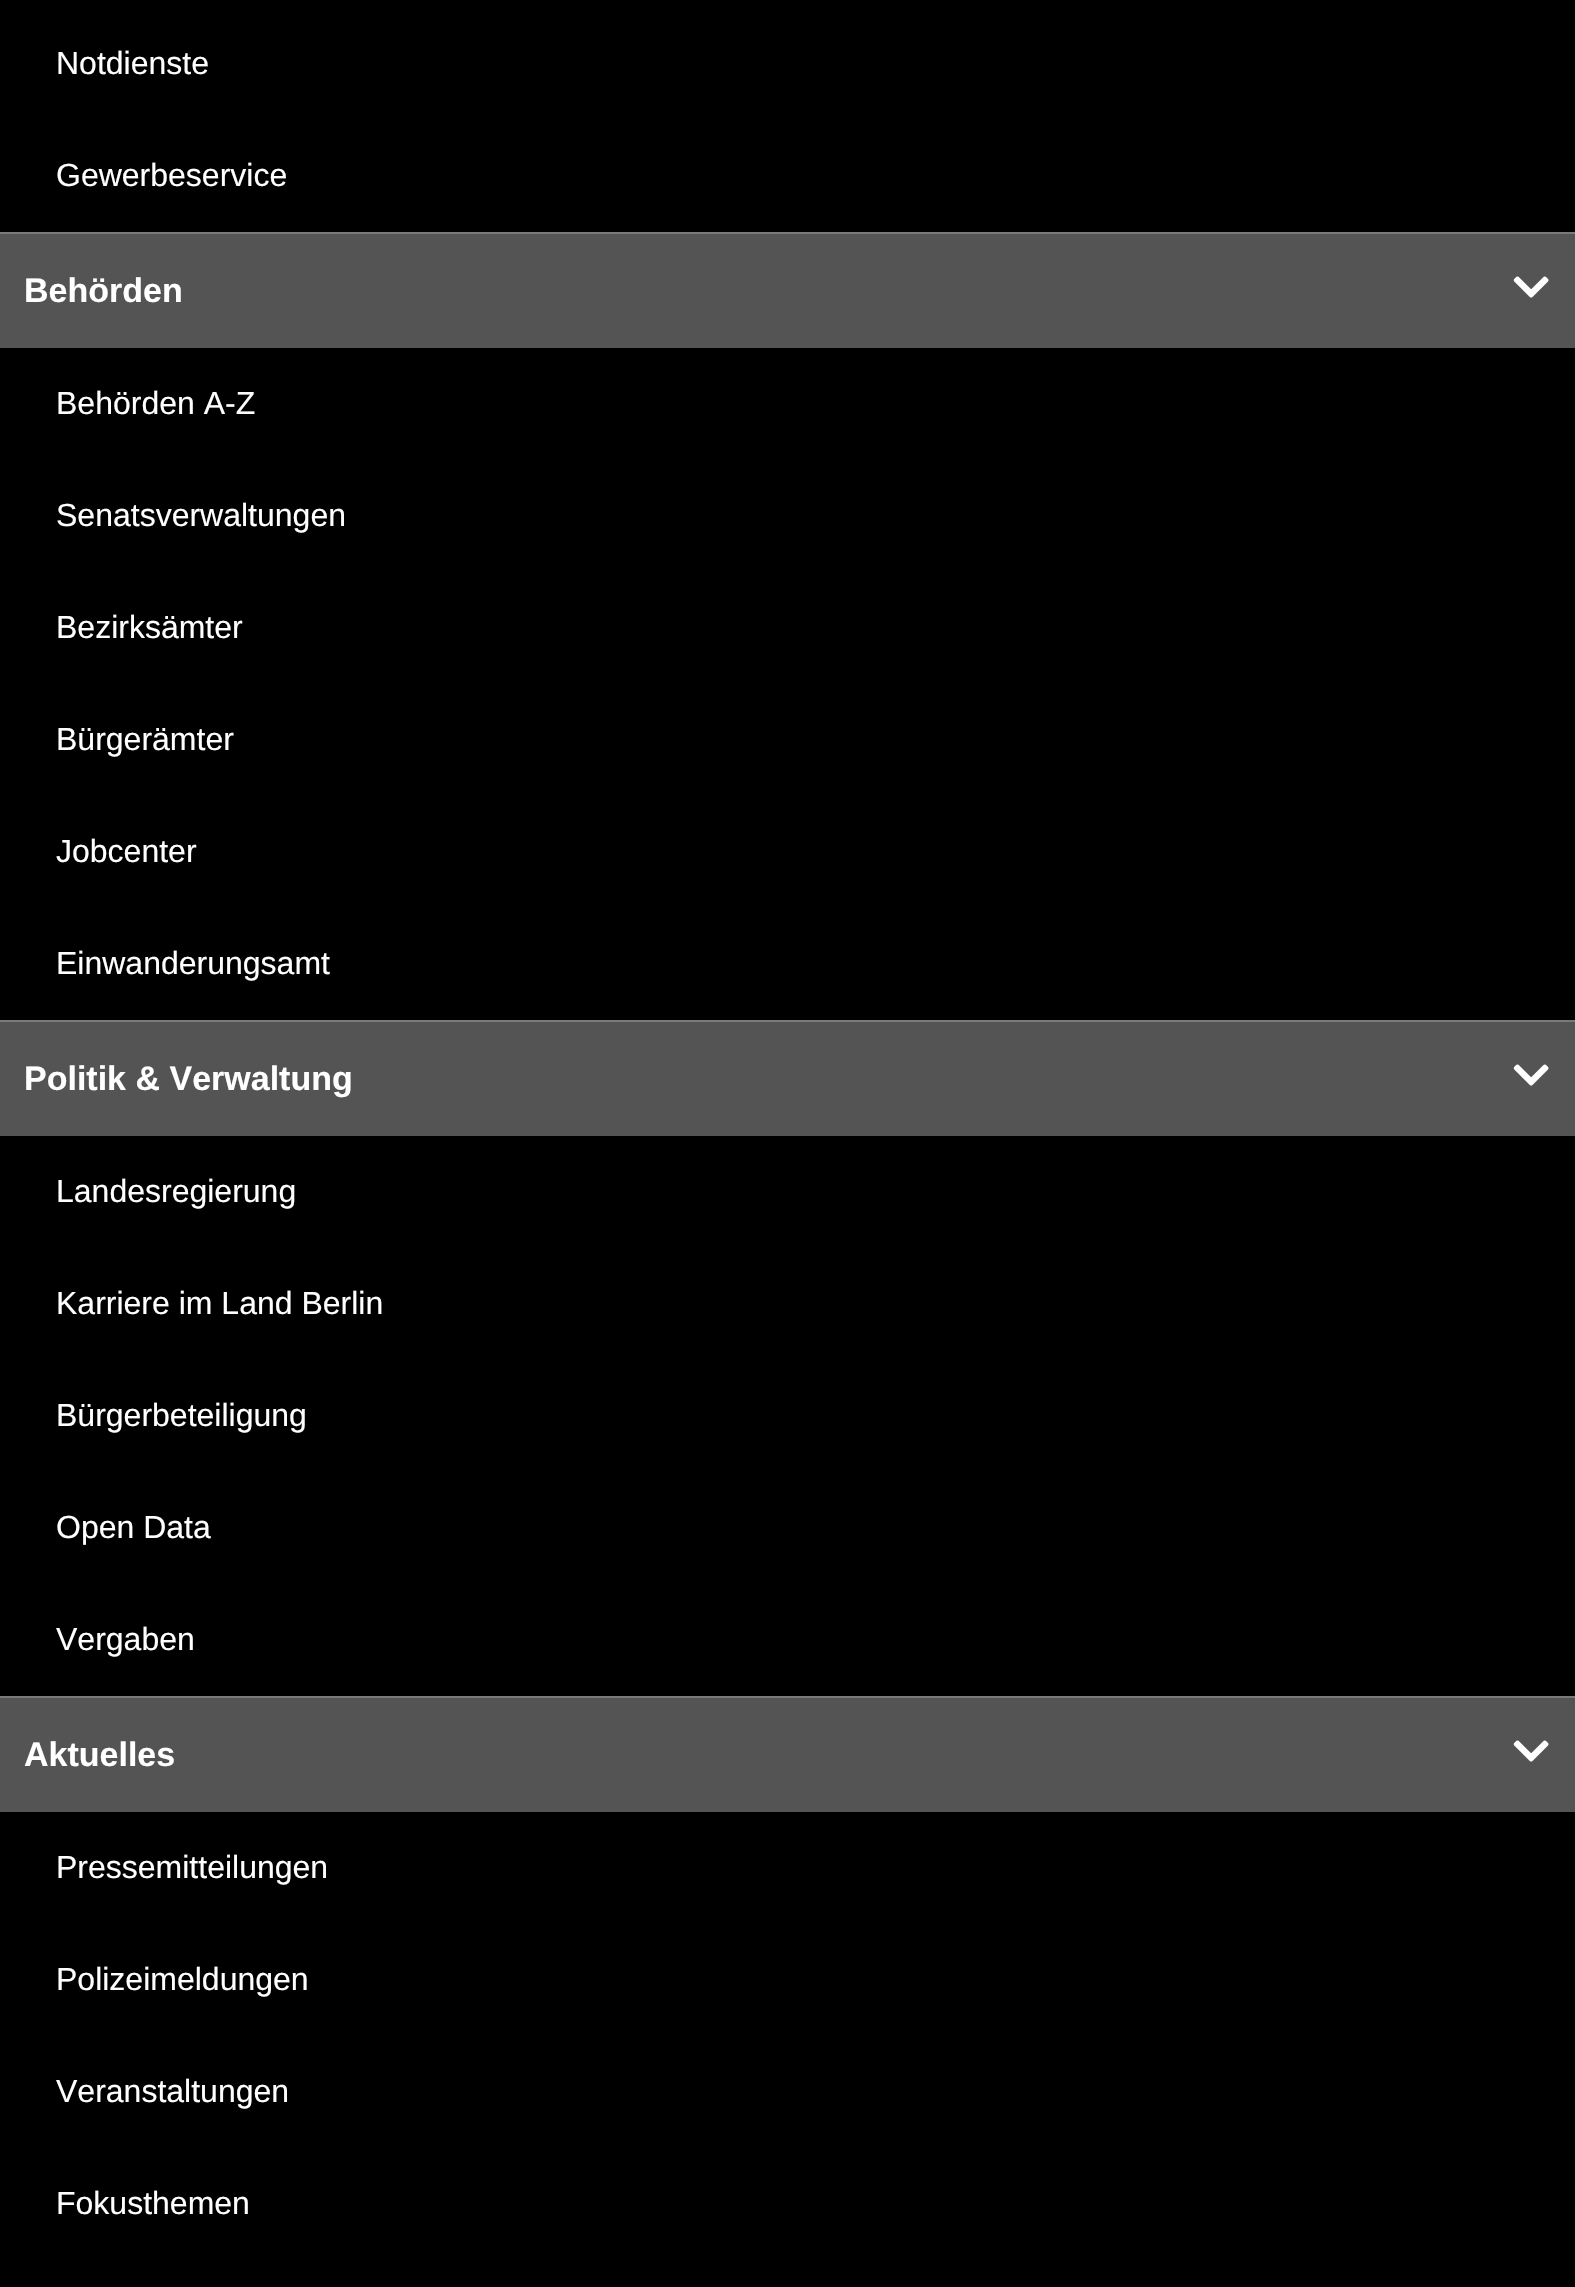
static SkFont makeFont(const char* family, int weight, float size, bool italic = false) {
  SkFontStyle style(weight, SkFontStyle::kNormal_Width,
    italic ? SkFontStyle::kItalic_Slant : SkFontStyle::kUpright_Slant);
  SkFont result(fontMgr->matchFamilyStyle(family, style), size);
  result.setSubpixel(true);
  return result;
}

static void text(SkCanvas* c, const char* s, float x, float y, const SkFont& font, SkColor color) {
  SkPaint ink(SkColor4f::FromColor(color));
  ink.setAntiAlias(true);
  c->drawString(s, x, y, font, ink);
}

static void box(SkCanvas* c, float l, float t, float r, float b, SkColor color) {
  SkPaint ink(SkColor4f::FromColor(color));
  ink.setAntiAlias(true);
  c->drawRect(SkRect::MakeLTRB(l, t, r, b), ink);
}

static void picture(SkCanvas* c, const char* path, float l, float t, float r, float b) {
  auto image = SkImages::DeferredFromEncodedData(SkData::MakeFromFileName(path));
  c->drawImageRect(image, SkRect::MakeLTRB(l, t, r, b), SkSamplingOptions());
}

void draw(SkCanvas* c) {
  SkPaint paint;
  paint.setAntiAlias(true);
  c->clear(0xff000000);
  SkFont face1 = makeFont("Liberation Sans", 400, 32);
  text(c, "Notdienste", 56, 74, face1, 0xffffffff);
  text(c, "Gewerbeservice", 56, 186, face1, 0xffffffff);
  box(c, 0, 232, 1575, 234, 0xff7a7a7a);
  box(c, 0, 234, 1575, 348, 0xff545454);
  SkFont face2 = makeFont("Liberation Sans", 700, 34);
  text(c, "Behörden", 24, 302, face2, 0xffffffff);
  picture(c, "img_01.png", 1513, 276, 1549, 298);
  text(c, "Behörden A-Z", 56, 414, face1, 0xffffffff);
  text(c, "Senatsverwaltungen", 56, 526, face1, 0xffffffff);
  text(c, "Bezirksämter", 56, 638, face1, 0xffffffff);
  text(c, "Bürgerämter", 56, 750, face1, 0xffffffff);
  text(c, "Jobcenter", 56, 862, face1, 0xffffffff);
  text(c, "Einwanderungsamt", 56, 974, face1, 0xffffffff);
  box(c, 0, 1020, 1575, 1022, 0xff7a7a7a);
  box(c, 0, 1022, 1575, 1136, 0xff545454);
  text(c, "Politik & Verwaltung", 24, 1090, face2, 0xffffffff);
  picture(c, "img_01.png", 1513, 1064, 1549, 1086);
  text(c, "Landesregierung", 56, 1202, face1, 0xffffffff);
  text(c, "Karriere im Land Berlin", 56, 1314, face1, 0xffffffff);
  text(c, "Bürgerbeteiligung", 56, 1426, face1, 0xffffffff);
  text(c, "Open Data", 56, 1538, face1, 0xffffffff);
  text(c, "Vergaben", 56, 1650, face1, 0xffffffff);
  box(c, 0, 1696, 1575, 1698, 0xff7a7a7a);
  box(c, 0, 1698, 1575, 1812, 0xff545454);
  text(c, "Aktuelles", 24, 1766, face2, 0xffffffff);
  picture(c, "img_01.png", 1513, 1740, 1549, 1762);
  text(c, "Pressemitteilungen", 56, 1878, face1, 0xffffffff);
  text(c, "Polizeimeldungen", 56, 1990, face1, 0xffffffff);
  text(c, "Veranstaltungen", 56, 2102, face1, 0xffffffff);
  text(c, "Fokusthemen", 56, 2214, face1, 0xffffffff);
}
